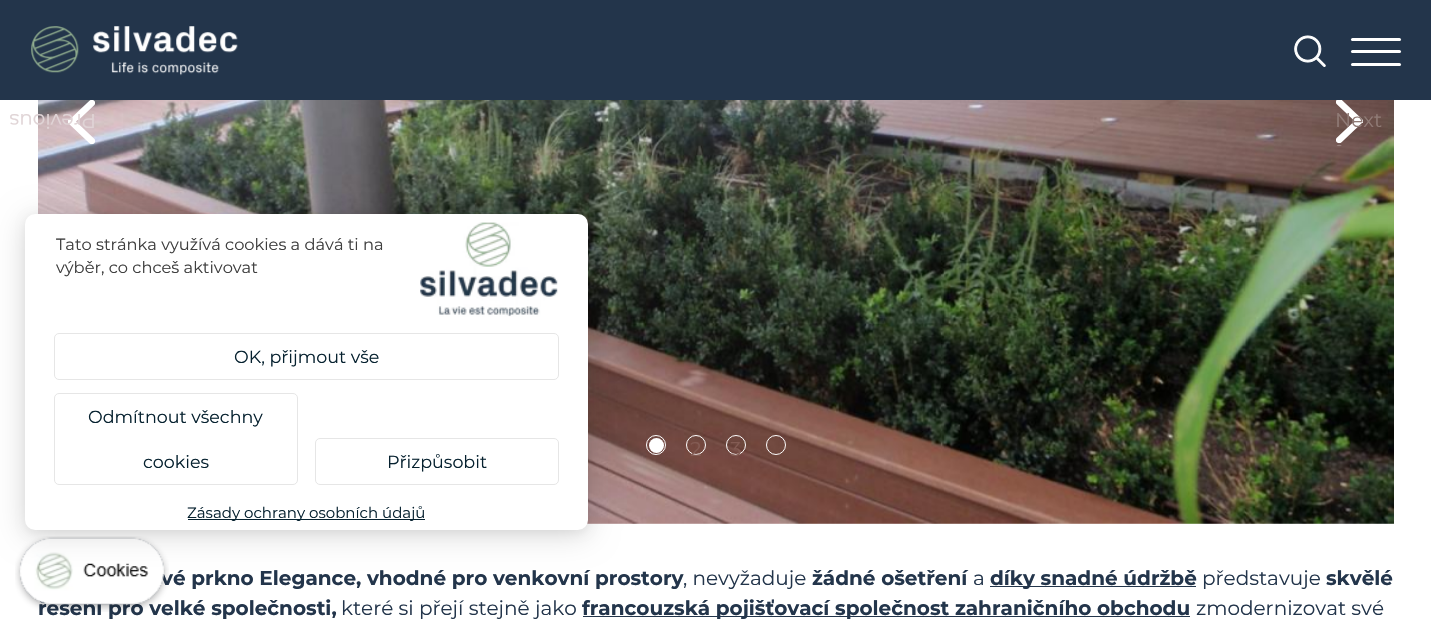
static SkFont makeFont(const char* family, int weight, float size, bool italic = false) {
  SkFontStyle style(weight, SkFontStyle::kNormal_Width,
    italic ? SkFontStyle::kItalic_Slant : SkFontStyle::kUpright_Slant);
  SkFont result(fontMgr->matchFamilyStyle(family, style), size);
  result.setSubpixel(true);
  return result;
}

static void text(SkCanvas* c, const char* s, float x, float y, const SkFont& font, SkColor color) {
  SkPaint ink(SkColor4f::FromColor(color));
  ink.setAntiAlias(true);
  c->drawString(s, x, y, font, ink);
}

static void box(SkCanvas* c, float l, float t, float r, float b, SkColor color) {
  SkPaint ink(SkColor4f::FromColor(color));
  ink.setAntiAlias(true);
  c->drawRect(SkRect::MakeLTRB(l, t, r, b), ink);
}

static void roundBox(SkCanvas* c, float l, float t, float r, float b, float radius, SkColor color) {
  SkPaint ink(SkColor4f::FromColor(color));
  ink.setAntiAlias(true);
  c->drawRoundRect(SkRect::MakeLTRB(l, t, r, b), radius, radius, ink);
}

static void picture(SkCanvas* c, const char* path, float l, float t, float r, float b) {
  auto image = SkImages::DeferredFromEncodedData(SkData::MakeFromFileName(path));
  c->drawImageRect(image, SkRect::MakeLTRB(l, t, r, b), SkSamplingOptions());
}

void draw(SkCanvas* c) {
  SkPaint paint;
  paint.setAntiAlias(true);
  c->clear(0xffffffff);
  box(c, 0, 0, 1431, 100, 0xff23354b);
  picture(c, "img_01.png", 31, 26, 238, 76);
  picture(c, "img_02.png", 1294, 35, 1326, 67);
  roundBox(c, 1351, 63, 1401, 66, 1.5f, 0xffffffff);
  roundBox(c, 1351, 38, 1401, 41, 1.5f, 0xffffffff);
  roundBox(c, 1351, 50, 1401, 53, 1.5f, 0xffffffff);
  picture(c, "img_03.png", 38, 100, 1394, 524);
  picture(c, "img_04.png", 68, 100, 95, 145);
  SkFont face1 = makeFont("Montserrat", 400, 20);
  c->save();
  c->rotate(180, 96, 114);
  text(c, "Previous", 96, 114, face1, 0xffe0d4d6);
  c->restore();
  picture(c, "img_05.png", 1336, 100, 1363, 146);
  text(c, "Next", 1335, 127, face1, 0xff907b76);
  paint.setStyle(SkPaint::kStroke_Style);
  paint.setStrokeWidth(1);
  paint.setColor(0xffffffff);
  c->drawCircle(656, 445, 9.5f, paint);
  paint.setStyle(SkPaint::kFill_Style);
  c->drawCircle(656.5f, 445.5f, 7.5f, paint);
  paint.setStyle(SkPaint::kStroke_Style);
  c->drawCircle(696, 445, 9.5f, paint);
  text(c, "2", 690, 456, face1, 0xff835b53);
  c->drawCircle(736, 445, 9.5f, paint);
  text(c, "3", 730, 456, face1, 0xff835b53);
  c->drawCircle(776, 445, 9.5f, paint);
  SkFont face2 = makeFont("Montserrat", 700, 20);
  text(c, "vé prkno Elegance, vhodné pro venkovní prostory", 161, 585, face2, 0xff23354b);
  text(c, ", nevyžaduje", 683, 585, face1, 0xff23354b);
  text(c, "žádné ošetření", 812, 585, face2, 0xff23354b);
  text(c, "a", 973, 585, face1, 0xff23354b);
  box(c, 990, 586, 1196, 587, 0xff23354b);
  text(c, "díky snadné údržbě", 990, 585, face2, 0xff23354b);
  text(c, "představuje", 1202, 585, face1, 0xff23354b);
  text(c, "skvělé", 1326, 585, face2, 0xff23354b);
  text(c, "řešení pro velké společnosti,", 38, 615, face2, 0xff23354b);
  text(c, "které si přejí stejně jako", 341, 615, face1, 0xff23354b);
  box(c, 583, 616, 1190, 617, 0xff23354b);
  text(c, "francouzská pojišťovací společnost zahraničního obchodu", 582, 615, face2, 0xff23354b);
  text(c, "zmodernizovat své", 1196, 615, face1, 0xff23354b);
  paint.setStyle(SkPaint::kFill_Style);
  paint.setColor(0x0d000000);
  paint.setMaskFilter(SkMaskFilter::MakeBlur(kNormal_SkBlurStyle, 4));
  c->drawRoundRect(SkRect::MakeLTRB(25, 216, 588, 533), 10, 10, paint);
  paint.setMaskFilter(nullptr);
  paint.setColor(0x26000000);
  paint.setMaskFilter(SkMaskFilter::MakeBlur(kNormal_SkBlurStyle, 15));
  c->drawRoundRect(SkRect::MakeLTRB(25, 219, 588, 535), 10, 10, paint);
  paint.setMaskFilter(nullptr);
  roundBox(c, 25, 214, 588, 530, 10, 0xffffffff);
  picture(c, "img_06.png", 420, 222, 558, 317);
  SkFont face3 = makeFont("Montserrat", 400, 16.25f);
  text(c, "Tato stránka využívá cookies a dává ti na", 56, 250, face3, 0xff3f3f3f);
  text(c, "výběr, co chceš aktivovat", 56, 273, face3, 0xff3f3f3f);
  paint.setStyle(SkPaint::kStroke_Style);
  paint.setColor(0xffe6e6e6);
  c->drawRoundRect(SkRect::MakeLTRB(54.5f, 333.5f, 558.5f, 379.5f), 4.5f, 4.5f, paint);
  SkFont face4 = makeFont("Montserrat", 400, 17.5f);
  text(c, "OK, přijmout vše", 234, 363, face4, 0xff06212f);
  c->drawRoundRect(SkRect::MakeLTRB(54.5f, 393.5f, 297.5f, 484.5f), 4.5f, 4.5f, paint);
  text(c, "Odmítnout všechny", 88, 423, face4, 0xff06212f);
  text(c, "cookies", 143, 468, face4, 0xff06212f);
  c->drawRoundRect(SkRect::MakeLTRB(315.5f, 438.5f, 558.5f, 484.5f), 4.5f, 4.5f, paint);
  text(c, "Přizpůsobit", 387, 468, face4, 0xff06212f);
  box(c, 188, 519, 425, 520, 0xff06212f);
  SkFont face5 = makeFont("Montserrat", 400, 15);
  text(c, "Zásady ochrany osobních údajů", 187, 518, face5, 0xff06212f);
  picture(c, "img_07.png", 15, 536, 169, 612);
}
